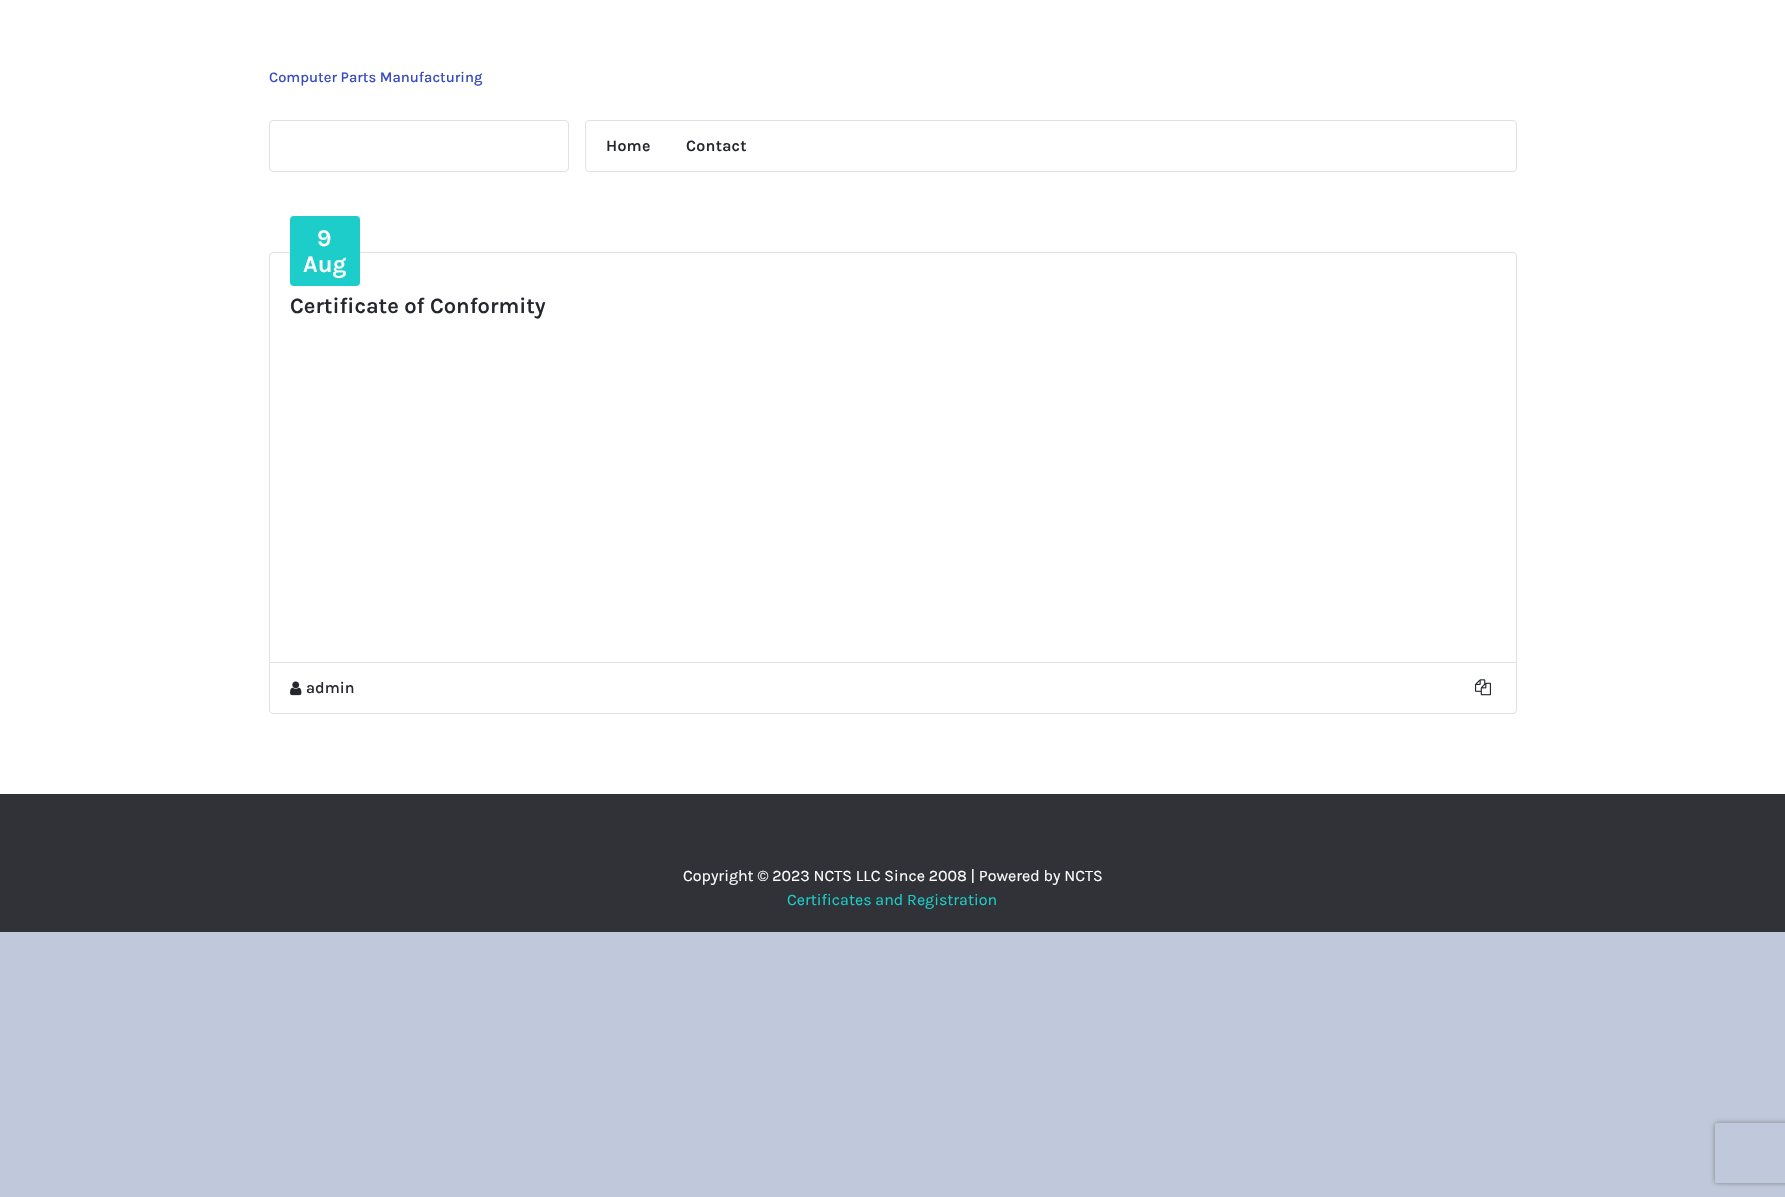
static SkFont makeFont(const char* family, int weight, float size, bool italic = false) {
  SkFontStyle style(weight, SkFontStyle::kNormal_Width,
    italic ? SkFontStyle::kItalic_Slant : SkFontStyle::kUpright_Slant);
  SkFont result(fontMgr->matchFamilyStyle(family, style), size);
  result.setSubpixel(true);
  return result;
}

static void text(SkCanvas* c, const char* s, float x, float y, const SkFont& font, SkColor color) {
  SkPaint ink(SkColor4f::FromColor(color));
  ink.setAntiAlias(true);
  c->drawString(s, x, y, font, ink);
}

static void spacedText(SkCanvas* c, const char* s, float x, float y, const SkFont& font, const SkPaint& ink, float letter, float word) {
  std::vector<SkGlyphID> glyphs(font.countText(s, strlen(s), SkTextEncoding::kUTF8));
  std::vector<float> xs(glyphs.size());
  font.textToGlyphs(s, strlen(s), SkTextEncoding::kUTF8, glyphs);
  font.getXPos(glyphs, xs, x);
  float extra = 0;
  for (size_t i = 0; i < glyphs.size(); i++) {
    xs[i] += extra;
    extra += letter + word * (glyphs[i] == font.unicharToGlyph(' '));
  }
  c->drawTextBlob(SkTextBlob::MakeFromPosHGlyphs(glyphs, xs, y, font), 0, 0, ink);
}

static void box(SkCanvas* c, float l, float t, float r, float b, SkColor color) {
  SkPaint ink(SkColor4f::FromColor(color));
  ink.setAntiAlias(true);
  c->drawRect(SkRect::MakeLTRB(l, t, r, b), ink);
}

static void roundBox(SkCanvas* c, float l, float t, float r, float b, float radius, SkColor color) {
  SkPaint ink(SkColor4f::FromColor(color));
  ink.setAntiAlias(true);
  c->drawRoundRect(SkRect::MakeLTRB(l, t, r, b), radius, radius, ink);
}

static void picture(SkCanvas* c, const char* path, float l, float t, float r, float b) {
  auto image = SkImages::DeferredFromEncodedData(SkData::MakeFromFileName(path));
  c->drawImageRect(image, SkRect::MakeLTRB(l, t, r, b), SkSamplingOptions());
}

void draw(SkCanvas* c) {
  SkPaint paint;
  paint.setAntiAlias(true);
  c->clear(0xffc0c9db);
  box(c, 0, 0, 1785, 794, 0xffffffff);
  SkFont face1 = makeFont("Karla", 500, 14.75f);
  text(c, "Computer Parts Manufacturing", 269, 82, face1, 0xff364bc1);
  paint.setStyle(SkPaint::kStroke_Style);
  paint.setStrokeWidth(1);
  paint.setColor(0xffe1e1e1);
  c->drawRoundRect(SkRect::MakeLTRB(269.5f, 120.5f, 568.5f, 171.5f), 3.5f, 3.5f, paint);
  c->drawRoundRect(SkRect::MakeLTRB(585.5f, 120.5f, 1516.5f, 171.5f), 3.5f, 3.5f, paint);
  SkFont face2 = makeFont("Karla", 600, 16);
  paint.setStyle(SkPaint::kFill_Style);
  paint.setColor(0xff24272e);
  spacedText(c, "Home", 606, 151, face2, paint, 0.25f, 0);
  spacedText(c, "Contact", 686, 151, face2, paint, 0.25f, 0);
  paint.setStyle(SkPaint::kStroke_Style);
  paint.setColor(0xffe1e1e1);
  c->drawRoundRect(SkRect::MakeLTRB(269.5f, 252.5f, 1516.5f, 713.5f), 3.5f, 3.5f, paint);
  roundBox(c, 290, 216, 360, 286, 4, 0xff1ccdca);
  SkFont face3 = makeFont("Karla", 600, 24);
  text(c, "9", 317, 246, face3, 0xffffffff);
  text(c, "Aug", 303, 272, face3, 0xffffffff);
  SkFont face4 = makeFont("Karla", 600, 22);
  text(c, "Certificate of Conformity", 290, 313, face4, 0xff24272e);
  box(c, 270, 662, 1516, 663, 0xffe1e1e1);
  picture(c, "img_01.png", 290, 681, 302, 696);
  SkFont face5 = makeFont("Karla", 500, 16);
  text(c, "admin", 306, 693, face5, 0xff24272e);
  picture(c, "img_02.png", 1475, 679, 1491, 696);
  box(c, 0, 794, 1785, 932, 0xff303237);
  SkFont face6 = makeFont("Karla", 400, 16);
  text(c, "Copyright © 2023 NCTS LLC Since 2008 | Powered by NCTS", 683, 881, face6, 0xffffffff);
  text(c, "Certificates and Registration", 787, 905, face6, 0xff1ccdca);
  c->save();
  c->clipPath(SkPathBuilder(SkPathFillType::kEvenOdd).moveTo(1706, 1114).lineTo(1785, 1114).lineTo(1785, 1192).lineTo(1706, 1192).close().moveTo(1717, 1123).lineTo(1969, 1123).cubicTo(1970, 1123, 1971, 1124, 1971, 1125).lineTo(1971, 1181).cubicTo(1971, 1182, 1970, 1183, 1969, 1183).lineTo(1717, 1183).cubicTo(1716, 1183, 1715, 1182, 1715, 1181).lineTo(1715, 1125).cubicTo(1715, 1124, 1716, 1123, 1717, 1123).close().detach(), true);
  paint.setStyle(SkPaint::kFill_Style);
  paint.setColor(0xff808080);
  paint.setMaskFilter(SkMaskFilter::MakeBlur(kNormal_SkBlurStyle, 2.5f));
  c->drawRoundRect(SkRect::MakeLTRB(1715, 1123, 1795, 1183), 2, 2, paint);
  paint.setMaskFilter(nullptr);
  c->restore();
}
